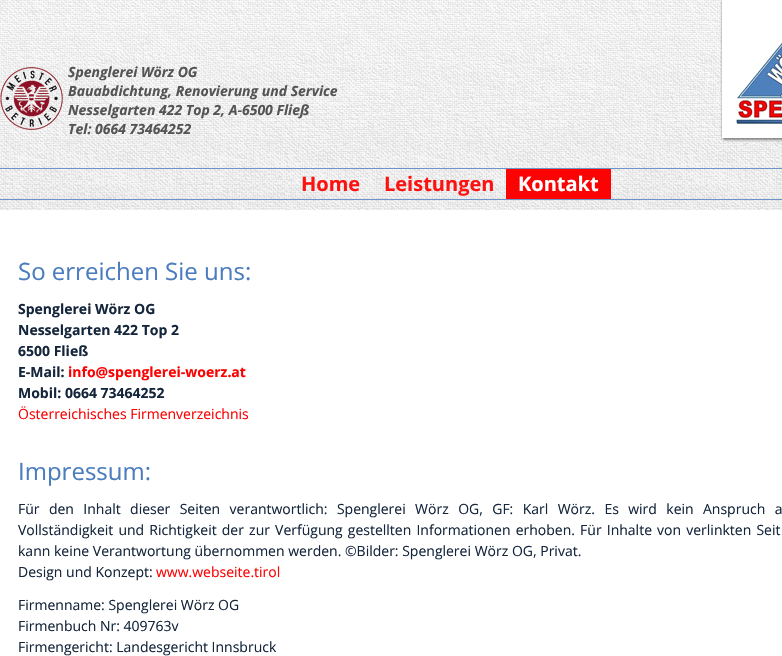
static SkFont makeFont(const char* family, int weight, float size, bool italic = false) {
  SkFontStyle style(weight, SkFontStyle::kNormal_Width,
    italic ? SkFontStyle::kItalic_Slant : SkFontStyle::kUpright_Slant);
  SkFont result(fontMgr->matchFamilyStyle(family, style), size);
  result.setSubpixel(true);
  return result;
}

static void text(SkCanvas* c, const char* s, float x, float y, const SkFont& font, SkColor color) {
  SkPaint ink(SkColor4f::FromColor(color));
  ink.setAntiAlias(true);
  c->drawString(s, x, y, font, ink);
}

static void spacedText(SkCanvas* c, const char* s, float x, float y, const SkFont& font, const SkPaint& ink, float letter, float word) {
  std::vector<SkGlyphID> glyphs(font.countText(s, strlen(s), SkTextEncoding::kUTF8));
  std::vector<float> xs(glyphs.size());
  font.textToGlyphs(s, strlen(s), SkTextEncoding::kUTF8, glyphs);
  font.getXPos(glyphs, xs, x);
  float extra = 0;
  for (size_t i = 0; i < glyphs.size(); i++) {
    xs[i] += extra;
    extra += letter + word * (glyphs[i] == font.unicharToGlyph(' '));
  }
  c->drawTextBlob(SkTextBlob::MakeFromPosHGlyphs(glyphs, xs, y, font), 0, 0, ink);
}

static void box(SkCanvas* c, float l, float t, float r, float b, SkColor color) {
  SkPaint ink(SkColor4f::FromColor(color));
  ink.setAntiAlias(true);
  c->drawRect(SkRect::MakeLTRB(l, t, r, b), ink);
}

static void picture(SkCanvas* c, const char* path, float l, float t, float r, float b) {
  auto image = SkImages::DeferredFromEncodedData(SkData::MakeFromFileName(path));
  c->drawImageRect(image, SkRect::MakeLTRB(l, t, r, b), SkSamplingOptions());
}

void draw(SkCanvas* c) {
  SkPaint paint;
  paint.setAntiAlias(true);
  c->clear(0xffffffff);
  picture(c, "img_01.png", 0, 0, 782, 210);
  picture(c, "img_02.png", 0, 67, 63, 130);
  SkFont face1 = makeFont("Open Sans", 700, 14, true);
  text(c, "Spenglerei Wörz OG", 68, 77, face1, 0xff545454);
  text(c, "Bauabdichtung, Renovierung und Service", 68, 96, face1, 0xff545454);
  text(c, "Nesselgarten 422 Top 2, A-6500 Fließ", 68, 115, face1, 0xff545454);
  text(c, "Tel: 0664 73464252", 68, 134, face1, 0xff545454);
  picture(c, "img_03.png", 720, 0, 782, 142);
  box(c, 0, 168, 782, 169, 0xcc4b7dbe);
  box(c, 0, 199, 782, 200, 0xcc4b7dbe);
  SkFont face2 = makeFont("Open Sans", 700, 20);
  text(c, "Home", 301, 191, face2, 0xfffd1212);
  text(c, "Leistungen", 384, 191, face2, 0xfffd1212);
  box(c, 506, 169, 611, 199, 0xfffc0303);
  text(c, "Kontakt", 518, 191, face2, 0xffffffff);
  SkFont face3 = makeFont("Open Sans", 400, 24);
  text(c, "So erreichen Sie uns:", 18, 280, face3, 0xff4b7dbe);
  SkFont face4 = makeFont("Open Sans", 700, 14);
  text(c, "Spenglerei Wörz OG", 18, 314, face4, 0xff15263c);
  text(c, "Nesselgarten 422 Top 2", 18, 335, face4, 0xff15263c);
  text(c, "6500 Fließ", 18, 356, face4, 0xff15263c);
  text(c, "E-Mail:", 18, 377, face4, 0xff15263c);
  text(c, "info@spenglerei-woerz.at", 68, 377, face4, 0xfffc0303);
  text(c, "Mobil: 0664 73464252", 18, 398, face4, 0xff15263c);
  SkFont face5 = makeFont("Open Sans", 400, 14);
  text(c, "Österreichisches Firmenverzeichnis", 18, 419, face5, 0xfffc0303);
  text(c, "Impressum:", 18, 480, face3, 0xff4b7dbe);
  paint.setColor(0xff15263c);
  spacedText(c, "Für den Inhalt dieser Seiten verantwortlich: Spenglerei Wörz OG, GF: Karl Wörz. Es wird kein Anspruch a", 18, 514, face5, paint, 0, 5.75f);
  spacedText(c, "Vollständigkeit und Richtigkeit der zur Verfügung gestellten Informationen erhoben. Für Inhalte von verlinkten Seit", 18, 535, face5, paint, 0, 1.5f);
  text(c, "kann keine Verantwortung übernommen werden. ©Bilder: Spenglerei Wörz OG, Privat.", 18, 556, face5, 0xff15263c);
  text(c, "Design und Konzept:", 18, 577, face5, 0xff15263c);
  text(c, "www.webseite.tirol", 156, 577, face5, 0xfffc0303);
  text(c, "Firmenname: Spenglerei Wörz OG", 18, 610, face5, 0xff15263c);
  text(c, "Firmenbuch Nr: 409763v", 18, 631, face5, 0xff15263c);
  text(c, "Firmengericht: Landesgericht Innsbruck", 18, 652, face5, 0xff15263c);
}
